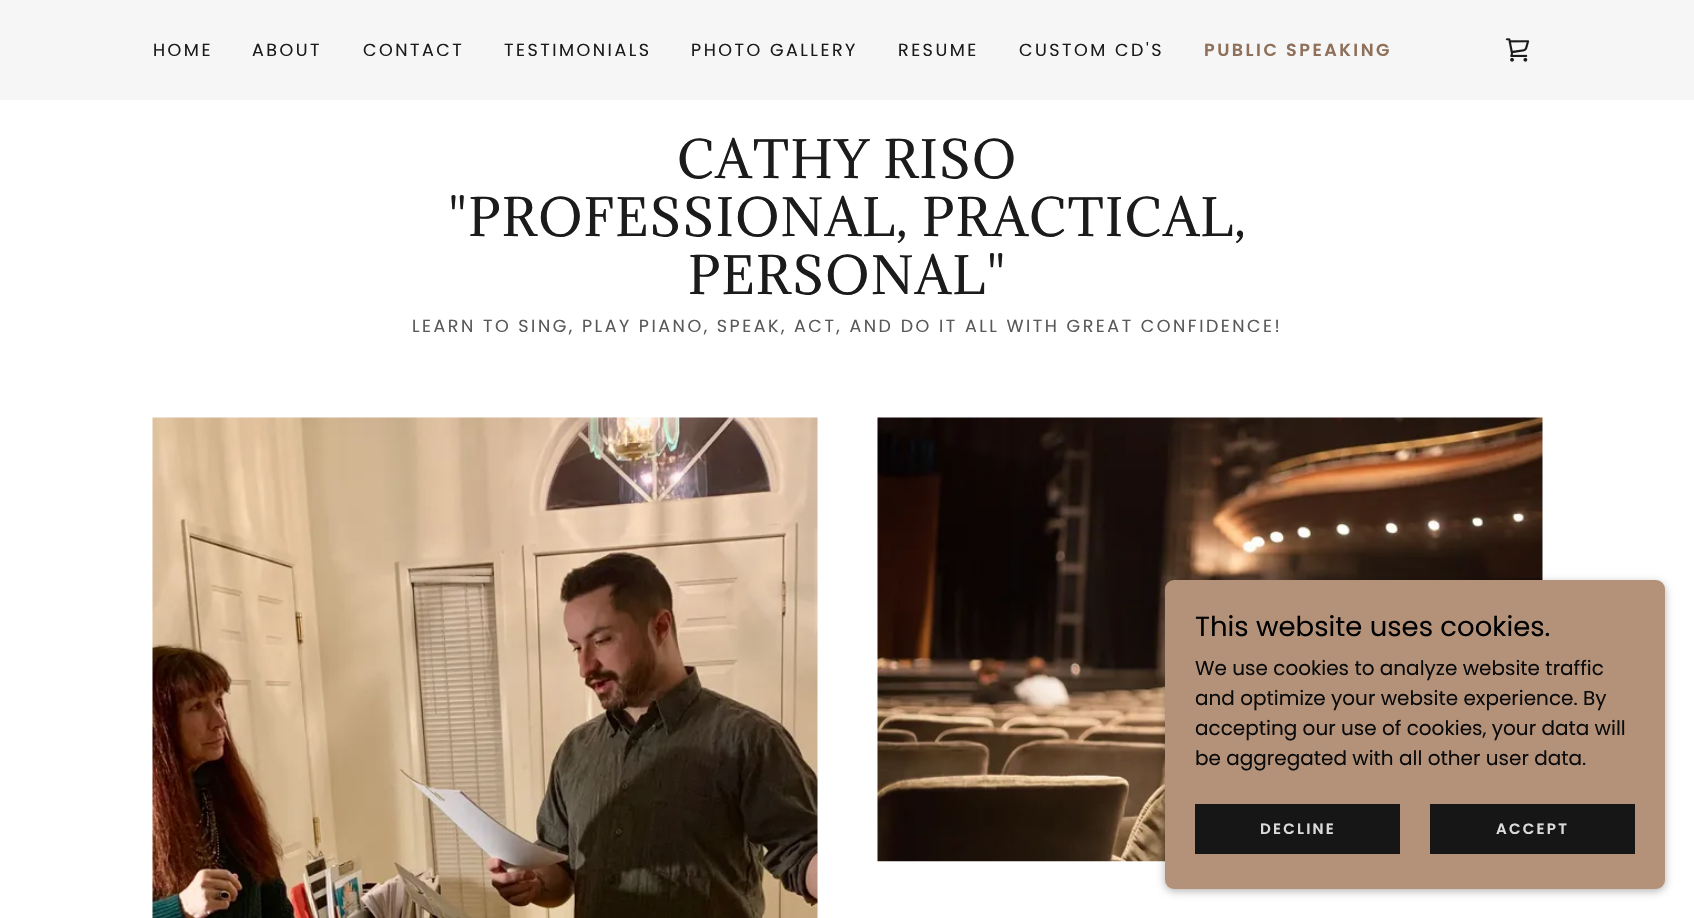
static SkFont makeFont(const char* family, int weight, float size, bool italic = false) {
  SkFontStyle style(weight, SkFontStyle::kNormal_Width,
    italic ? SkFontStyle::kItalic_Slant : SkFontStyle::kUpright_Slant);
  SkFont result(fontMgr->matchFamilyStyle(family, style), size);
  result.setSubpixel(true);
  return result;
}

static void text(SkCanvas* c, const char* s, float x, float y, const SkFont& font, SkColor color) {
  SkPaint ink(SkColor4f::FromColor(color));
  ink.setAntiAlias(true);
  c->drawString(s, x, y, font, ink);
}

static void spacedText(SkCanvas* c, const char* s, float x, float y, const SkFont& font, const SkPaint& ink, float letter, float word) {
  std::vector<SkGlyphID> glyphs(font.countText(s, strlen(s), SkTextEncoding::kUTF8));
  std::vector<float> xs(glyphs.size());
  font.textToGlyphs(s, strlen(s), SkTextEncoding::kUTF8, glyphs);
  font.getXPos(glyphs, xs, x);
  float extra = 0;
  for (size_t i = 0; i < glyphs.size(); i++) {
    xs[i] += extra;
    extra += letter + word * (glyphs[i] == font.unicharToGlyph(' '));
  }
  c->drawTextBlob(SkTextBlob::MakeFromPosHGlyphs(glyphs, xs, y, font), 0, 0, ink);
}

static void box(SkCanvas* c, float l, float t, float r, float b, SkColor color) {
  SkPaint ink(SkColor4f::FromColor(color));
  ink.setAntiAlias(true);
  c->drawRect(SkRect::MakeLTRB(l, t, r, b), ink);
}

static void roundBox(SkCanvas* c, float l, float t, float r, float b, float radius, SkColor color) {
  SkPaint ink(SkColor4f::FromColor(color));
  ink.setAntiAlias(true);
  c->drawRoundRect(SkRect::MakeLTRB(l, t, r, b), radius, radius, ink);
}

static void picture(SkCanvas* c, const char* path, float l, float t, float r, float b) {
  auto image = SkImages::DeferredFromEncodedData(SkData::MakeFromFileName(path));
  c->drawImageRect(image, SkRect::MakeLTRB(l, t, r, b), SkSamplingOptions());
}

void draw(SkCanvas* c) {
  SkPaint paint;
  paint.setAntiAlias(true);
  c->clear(0xffffffff);
  box(c, 0, 0, 1694, 100, 0xfff6f6f6);
  SkFont face1 = makeFont("Poppins", 400, 17.5f);
  paint.setColor(0xff1b1b1b);
  spacedText(c, "HOME", 153, 56, face1, paint, 2.5f, 0);
  spacedText(c, "ABOUT", 252, 56, face1, paint, 2.5f, 0);
  spacedText(c, "CONTACT", 363, 56, face1, paint, 2.5f, 0);
  spacedText(c, "TESTIMONIALS", 504, 56, face1, paint, 2.5f, 0);
  spacedText(c, "PHOTO GALLERY", 691, 56, face1, paint, 2.5f, 0);
  spacedText(c, "RESUME", 898, 56, face1, paint, 2.5f, 0);
  spacedText(c, "CUSTOM CD'S", 1019, 56, face1, paint, 2.5f, 0);
  SkFont face2 = makeFont("Poppins", 600, 17.5f);
  paint.setColor(0xff8f705a);
  spacedText(c, "PUBLIC SPEAKING", 1204, 56, face2, paint, 2.5f, 0);
  picture(c, "img_01.png", 1505, 38, 1530, 62);
  SkFont face3 = makeFont("Adamina", 400, 48.75f);
  paint.setColor(0xff1b1b1b);
  spacedText(c, "CATHY RISO", 677, 178, face3, paint, 1.25f, 0);
  spacedText(c, "\"PROFESSIONAL, PRACTICAL,", 448, 236, face3, paint, 1.25f, 0);
  spacedText(c, "PERSONAL\"", 688, 294, face3, paint, 1.25f, 0);
  paint.setColor(0xff595959);
  spacedText(c, "LEARN TO SING, PLAY PIANO, SPEAK, ACT, AND DO IT ALL WITH GREAT CONFIDENCE!", 412, 332, face1, paint, 2.5f, 0);
  picture(c, "img_02.png", 152, 417, 818, 918);
  picture(c, "img_03.png", 877, 417, 1543, 862);
  paint.setColor(0x4d000000);
  paint.setMaskFilter(SkMaskFilter::MakeBlur(kNormal_SkBlurStyle, 4));
  c->drawRoundRect(SkRect::MakeLTRB(1165, 583, 1665, 891), 9, 9, paint);
  paint.setMaskFilter(nullptr);
  roundBox(c, 1165, 580, 1665, 889, 9, 0xffb4927a);
  SkFont face4 = makeFont("Poppins", 400, 27.5f);
  text(c, "This website uses cookies.", 1195, 636, face4, 0xff000000);
  SkFont face5 = makeFont("Poppins", 400, 20);
  text(c, "We use cookies to analyze website traffic", 1195, 675, face5, 0xff0b0b0b);
  text(c, "and optimize your website experience. By", 1195, 705, face5, 0xff0b0b0b);
  text(c, "accepting our use of cookies, your data will", 1195, 735, face5, 0xff0b0b0b);
  text(c, "be aggregated with all other user data.", 1195, 765, face5, 0xff0b0b0b);
  box(c, 1195, 804, 1400, 854, 0xff161616);
  SkFont face6 = makeFont("Poppins", 600, 15);
  paint.setColor(0xffdbdbdb);
  spacedText(c, "DECLINE", 1260, 834, face6, paint, 2.25f, 0);
  box(c, 1430, 804, 1635, 854, 0xff161616);
  spacedText(c, "ACCEPT", 1496, 834, face6, paint, 2.25f, 0);
}
